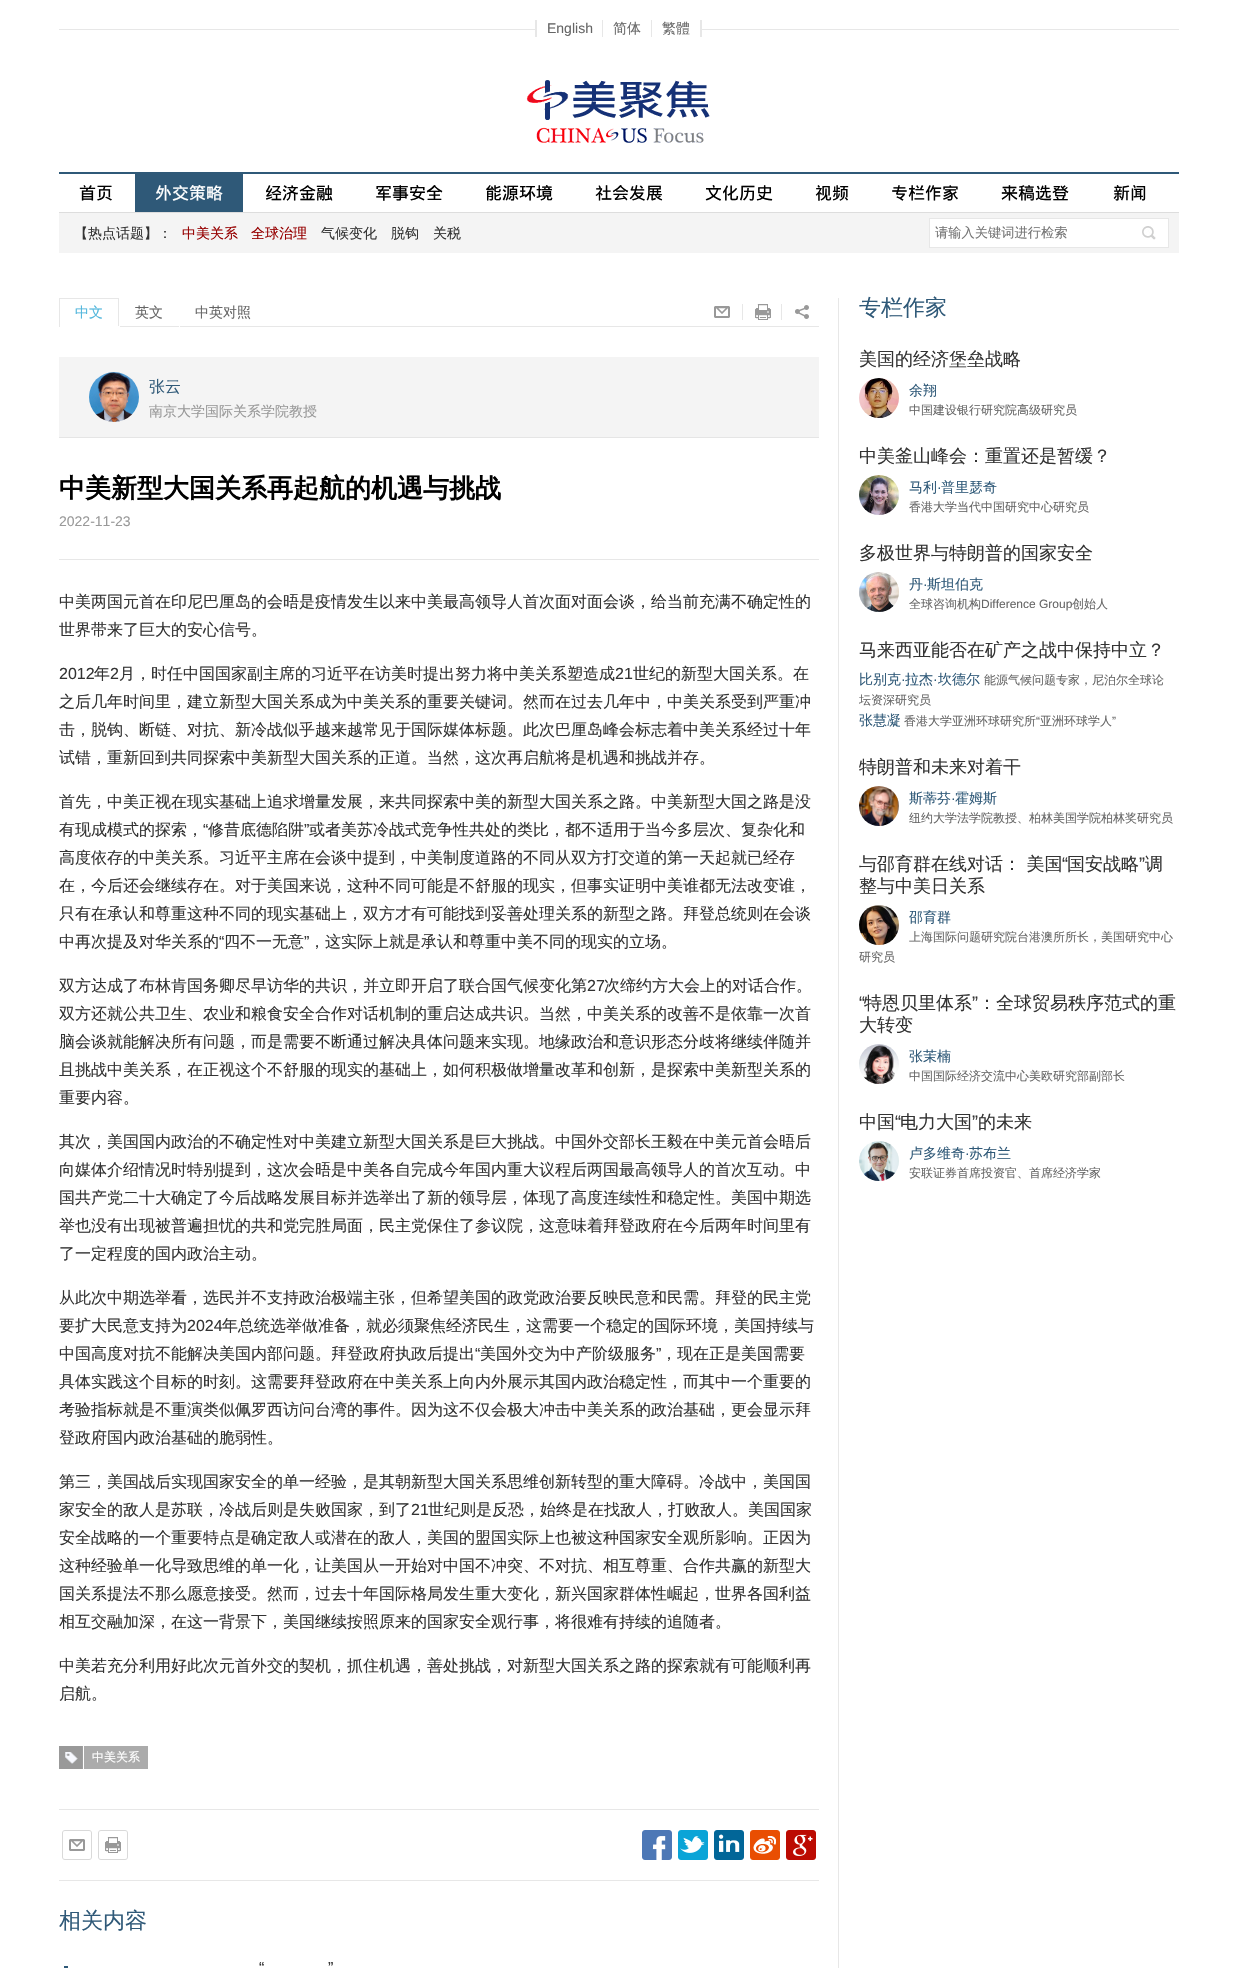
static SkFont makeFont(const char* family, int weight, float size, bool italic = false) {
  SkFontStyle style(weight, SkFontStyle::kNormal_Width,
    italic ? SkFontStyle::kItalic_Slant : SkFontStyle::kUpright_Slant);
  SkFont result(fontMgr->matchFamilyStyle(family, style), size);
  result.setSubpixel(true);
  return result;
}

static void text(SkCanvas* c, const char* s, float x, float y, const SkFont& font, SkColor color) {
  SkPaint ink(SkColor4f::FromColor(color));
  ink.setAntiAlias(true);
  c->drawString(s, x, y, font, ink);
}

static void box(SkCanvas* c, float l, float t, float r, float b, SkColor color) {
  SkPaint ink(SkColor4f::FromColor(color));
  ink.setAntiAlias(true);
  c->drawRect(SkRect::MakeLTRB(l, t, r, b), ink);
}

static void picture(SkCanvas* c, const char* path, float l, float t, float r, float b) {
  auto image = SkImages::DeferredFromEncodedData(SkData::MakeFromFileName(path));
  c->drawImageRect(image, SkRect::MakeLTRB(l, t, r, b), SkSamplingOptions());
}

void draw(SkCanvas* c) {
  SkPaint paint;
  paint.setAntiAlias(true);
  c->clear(0xffffffff);
  box(c, 59, 29, 1179, 30, 0xffe7e7e7);
  box(c, 537, 29, 700, 30, 0xffffffff);
  box(c, 700, 20, 702, 37, 0xffe7e7e7);
  box(c, 535, 20, 537, 37, 0xffe7e7e7);
  SkFont face1 = makeFont("Liberation Sans", 400, 14);
  text(c, "English", 547, 33, face1, 0xff666666);
  box(c, 602, 20, 603, 37, 0xffe7e7e7);
  SkFont face2 = makeFont("WenQuanYi Zen Hei", 500, 14);
  text(c, "简体", 613, 33, face2, 0xff666666);
  box(c, 651, 20, 652, 37, 0xffe7e7e7);
  text(c, "繁體", 662, 33, face2, 0xff666666);
  picture(c, "img_01.png", 526, 80, 710, 143);
  box(c, 59, 172, 1179, 174, 0xff2f5978);
  box(c, 59, 212, 1179, 213, 0xffdddddd);
  SkFont face3 = makeFont("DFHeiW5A", 400, 17);
  text(c, "首页", 79, 199, face3, 0xff000000);
  box(c, 135, 174, 243, 212, 0xff2f5978);
  text(c, "外交策略", 155, 199, face3, 0xffffffff);
  text(c, "经济金融", 265, 199, face3, 0xff000000);
  text(c, "军事安全", 375, 199, face3, 0xff000000);
  text(c, "能源环境", 485, 199, face3, 0xff000000);
  text(c, "社会发展", 595, 199, face3, 0xff000000);
  text(c, "文化历史", 705, 199, face3, 0xff000000);
  text(c, "视频", 815, 199, face3, 0xff000000);
  text(c, "专栏作家", 891, 199, face3, 0xff000000);
  text(c, "来稿选登", 1001, 199, face3, 0xff000000);
  text(c, "新闻", 1113, 199, face3, 0xff000000);
  box(c, 59, 213, 1179, 253, 0xfff4f4f4);
  text(c, "【热点话题】：", 74, 238, face2, 0xff333333);
  text(c, "中美关系", 182, 238, face2, 0xff960000);
  text(c, "全球治理", 251, 238, face2, 0xff960000);
  text(c, "气候变化", 321, 238, face2, 0xff333333);
  text(c, "脱钩", 391, 238, face2, 0xff333333);
  text(c, "关税", 433, 238, face2, 0xff333333);
  paint.setColor(0xffffffff);
  c->drawRect(SkRect::MakeLTRB(929.5f, 218.5f, 1168.5f, 247.5f), paint);
  paint.setStyle(SkPaint::kStroke_Style);
  paint.setStrokeWidth(1);
  paint.setColor(0xffe7e7e7);
  c->drawRect(SkRect::MakeLTRB(929.5f, 218.5f, 1168.5f, 247.5f), paint);
  SkFont face4 = makeFont("WenQuanYi Zen Hei", 500, 13.25f);
  text(c, "请输入关键词进行检索", 935, 237, face4, 0xff757575);
  picture(c, "img_02.png", 1142, 226, 1156, 240);
  box(c, 838, 298, 839, 1968, 0xffe7e7e7);
  box(c, 267, 326, 819, 327, 0xffe7e7e7);
  box(c, 59, 298, 119, 299, 0xffe7e7e7);
  box(c, 118, 298, 119, 327, 0xffe7e7e7);
  box(c, 118, 326, 119, 327, 0xffffffff);
  box(c, 59, 298, 60, 327, 0xffe7e7e7);
  text(c, "中文", 75, 317, face2, 0xff50b6dc);
  box(c, 119, 326, 267, 327, 0xffe7e7e7);
  box(c, 119, 326, 120, 327, 0xffffffff);
  text(c, "英文", 135, 317, face2, 0xff666666);
  box(c, 179, 326, 180, 327, 0xffffffff);
  text(c, "中英对照", 195, 317, face2, 0xff666666);
  picture(c, "img_03.png", 714, 306, 730, 318);
  picture(c, "img_04.png", 755, 304, 771, 320);
  box(c, 781, 304, 782, 320, 0xffe7e7e7);
  box(c, 742, 304, 743, 320, 0xffe7e7e7);
  picture(c, "img_05.png", 795, 305, 809, 319);
  box(c, 59, 357, 819, 437, 0xfff4f4f4);
  box(c, 59, 437, 819, 438, 0xffe5e5e5);
  picture(c, "img_06.png", 89, 372, 139, 422);
  SkFont face5 = makeFont("WenQuanYi Zen Hei", 500, 16);
  text(c, "张云", 149, 392, face5, 0xff2f5978);
  text(c, "南京大学国际关系学院教授", 149, 416, face2, 0xff999999);
  SkFont face6 = makeFont("WenQuanYi Zen Hei", 700, 26);
  text(c, "中美新型大国关系再起航的机遇与挑战", 59, 497, face6, 0xff000000);
  text(c, "2022-11-23", 59, 526, face1, 0xff999999);
  box(c, 59, 559, 819, 560, 0xffe7e7e7);
  text(c, "中美两国元首在印尼巴厘岛的会晤是疫情发生以来中美最高领导人首次面对面会谈，给当前充满不确定性的", 59, 607, face5, 0xff333333);
  text(c, "世界带来了巨大的安心信号。", 59, 635, face5, 0xff333333);
  SkFont face7 = makeFont("Liberation Sans", 400, 16);
  text(c, "2012", 59, 679, face7, 0xff333333);
  text(c, "年", 94, 679, face5, 0xff333333);
  text(c, "2", 110, 679, face7, 0xff333333);
  text(c, "月，时任中国国家副主席的习近平在访美时提出努力将中美关系塑造成", 119, 679, face5, 0xff333333);
  text(c, "21", 615, 679, face7, 0xff333333);
  text(c, "世纪的新型大国关系。在", 633, 679, face5, 0xff333333);
  text(c, "之后几年时间里，建立新型大国关系成为中美关系的重要关键词。然而在过去几年中，中美关系受到严重冲", 59, 707, face5, 0xff333333);
  text(c, "击，脱钩、断链、对抗、新冷战似乎越来越常见于国际媒体标题。此次巴厘岛峰会标志着中美关系经过十年", 59, 735, face5, 0xff333333);
  text(c, "试错，重新回到共同探索中美新型大国关系的正道。当然，这次再启航将是机遇和挑战并存。", 59, 763, face5, 0xff333333);
  text(c, "首先，中美正视在现实基础上追求增量发展，来共同探索中美的新型大国关系之路。中美新型大国之路是没", 59, 807, face5, 0xff333333);
  text(c, "有现成模式的探索，", 59, 835, face5, 0xff333333);
  text(c, "“", 203, 835, face7, 0xff333333);
  text(c, "修昔底德陷阱", 208, 835, face5, 0xff333333);
  text(c, "”", 304, 835, face7, 0xff333333);
  text(c, "或者美苏冷战式竞争性共处的类比，都不适用于当今多层次、复杂化和", 309, 835, face5, 0xff333333);
  text(c, "高度依存的中美关系。习近平主席在会谈中提到，中美制度道路的不同从双方打交道的第一天起就已经存", 59, 863, face5, 0xff333333);
  text(c, "在，今后还会继续存在。对于美国来说，这种不同可能是不舒服的现实，但事实证明中美谁都无法改变谁，", 59, 891, face5, 0xff333333);
  text(c, "只有在承认和尊重这种不同的现实基础上，双方才有可能找到妥善处理关系的新型之路。拜登总统则在会谈", 59, 919, face5, 0xff333333);
  text(c, "中再次提及对华关系的", 59, 947, face5, 0xff333333);
  text(c, "“", 219, 947, face7, 0xff333333);
  text(c, "四不一无意", 224, 947, face5, 0xff333333);
  text(c, "”", 304, 947, face7, 0xff333333);
  text(c, "，这实际上就是承认和尊重中美不同的现实的立场。", 309, 947, face5, 0xff333333);
  text(c, "双方达成了布林肯国务卿尽早访华的共识，并立即开启了联合国气候变化第", 59, 991, face5, 0xff333333);
  text(c, "27", 587, 991, face7, 0xff333333);
  text(c, "次缔约方大会上的对话合作。", 604, 991, face5, 0xff333333);
  text(c, "双方还就公共卫生、农业和粮食安全合作对话机制的重启达成共识。当然，中美关系的改善不是依靠一次首", 59, 1019, face5, 0xff333333);
  text(c, "脑会谈就能解决所有问题，而是需要不断通过解决具体问题来实现。地缘政治和意识形态分歧将继续伴随并", 59, 1047, face5, 0xff333333);
  text(c, "且挑战中美关系，在正视这个不舒服的现实的基础上，如何积极做增量改革和创新，是探索中美新型关系的", 59, 1075, face5, 0xff333333);
  text(c, "重要内容。", 59, 1103, face5, 0xff333333);
  text(c, "其次，美国国内政治的不确定性对中美建立新型大国关系是巨大挑战。中国外交部长王毅在中美元首会晤后", 59, 1147, face5, 0xff333333);
  text(c, "向媒体介绍情况时特别提到，这次会晤是中美各自完成今年国内重大议程后两国最高领导人的首次互动。中", 59, 1175, face5, 0xff333333);
  text(c, "国共产党二十大确定了今后战略发展目标并选举出了新的领导层，体现了高度连续性和稳定性。美国中期选", 59, 1203, face5, 0xff333333);
  text(c, "举也没有出现被普遍担忧的共和党完胜局面，民主党保住了参议院，这意味着拜登政府在今后两年时间里有", 59, 1231, face5, 0xff333333);
  text(c, "了一定程度的国内政治主动。", 59, 1259, face5, 0xff333333);
  text(c, "从此次中期选举看，选民并不支持政治极端主张，但希望美国的政党政治要反映民意和民需。拜登的民主党", 59, 1303, face5, 0xff333333);
  text(c, "要扩大民意支持为", 59, 1331, face5, 0xff333333);
  text(c, "2024", 187, 1331, face7, 0xff333333);
  text(c, "年总统选举做准备，就必须聚焦经济民生，这需要一个稳定的国际环境，美国持续与", 222, 1331, face5, 0xff333333);
  text(c, "中国高度对抗不能解决美国内部问题。拜登政府执政后提出", 59, 1359, face5, 0xff333333);
  text(c, "“", 475, 1359, face7, 0xff333333);
  text(c, "美国外交为中产阶级服务", 480, 1359, face5, 0xff333333);
  text(c, "”", 656, 1359, face7, 0xff333333);
  text(c, "，现在正是美国需要", 661, 1359, face5, 0xff333333);
  text(c, "具体实践这个目标的时刻。这需要拜登政府在中美关系上向内外展示其国内政治稳定性，而其中一个重要的", 59, 1387, face5, 0xff333333);
  text(c, "考验指标就是不重演类似佩罗西访问台湾的事件。因为这不仅会极大冲击中美关系的政治基础，更会显示拜", 59, 1415, face5, 0xff333333);
  text(c, "登政府国内政治基础的脆弱性。", 59, 1443, face5, 0xff333333);
  text(c, "第三，美国战后实现国家安全的单一经验，是其朝新型大国关系思维创新转型的重大障碍。冷战中，美国国", 59, 1487, face5, 0xff333333);
  text(c, "家安全的敌人是苏联，冷战后则是失败国家，到了", 59, 1515, face5, 0xff333333);
  text(c, "21", 411, 1515, face7, 0xff333333);
  text(c, "世纪则是反恐，始终是在找敌人，打败敌人。美国国家", 428, 1515, face5, 0xff333333);
  text(c, "安全战略的一个重要特点是确定敌人或潜在的敌人，美国的盟国实际上也被这种国家安全观所影响。正因为", 59, 1543, face5, 0xff333333);
  text(c, "这种经验单一化导致思维的单一化，让美国从一开始对中国不冲突、不对抗、相互尊重、合作共赢的新型大", 59, 1571, face5, 0xff333333);
  text(c, "国关系提法不那么愿意接受。然而，过去十年国际格局发生重大变化，新兴国家群体性崛起，世界各国利益", 59, 1599, face5, 0xff333333);
  text(c, "相互交融加深，在这一背景下，美国继续按照原来的国家安全观行事，将很难有持续的追随者。", 59, 1627, face5, 0xff333333);
  text(c, "中美若充分利用好此次元首外交的契机，抓住机遇，善处挑战，对新型大国关系之路的探索就有可能顺利再", 59, 1671, face5, 0xff333333);
  text(c, "启航。", 59, 1699, face5, 0xff333333);
  picture(c, "img_07.png", 59, 1746, 83, 1769);
  box(c, 84, 1746, 148, 1769, 0xffababab);
  SkFont face8 = makeFont("WenQuanYi Zen Hei", 500, 12);
  text(c, "中美关系", 92, 1761, face8, 0xffffffff);
  box(c, 59, 1809, 819, 1810, 0xffe7e7e7);
  box(c, 59, 1880, 819, 1881, 0xffe7e7e7);
  picture(c, "img_08.png", 62, 1830, 92, 1860);
  picture(c, "img_09.png", 98, 1830, 128, 1860);
  picture(c, "img_10.png", 642, 1830, 672, 1860);
  picture(c, "img_11.png", 678, 1830, 708, 1860);
  picture(c, "img_12.png", 714, 1830, 744, 1860);
  picture(c, "img_13.png", 750, 1830, 780, 1860);
  picture(c, "img_14.png", 786, 1830, 816, 1860);
  SkFont face9 = makeFont("WenQuanYi Zen Hei", 500, 22);
  text(c, "相关内容", 59, 1928, face9, 0xff2f5978);
  box(c, 64, 1966, 68, 1968, 0xff2f5978);
  text(c, "“", 259, 1973, face7, 0xff333333);
  text(c, "”", 328, 1973, face7, 0xff333333);
  text(c, "专栏作家", 859, 315, face9, 0xff2f5978);
  SkFont face10 = makeFont("WenQuanYi Zen Hei", 500, 18);
  text(c, "美国的经济堡垒战略", 859, 365, face10, 0xff333333);
  picture(c, "img_15.png", 859, 378, 899, 418);
  text(c, "余翔", 909, 395, face2, 0xff2f5978);
  text(c, "中国建设银行研究院高级研究员", 909, 414, face8, 0xff666666);
  text(c, "中美釜山峰会：重置还是暂缓？", 859, 462, face10, 0xff333333);
  picture(c, "img_16.png", 859, 475, 899, 515);
  text(c, "马利", 909, 492, face2, 0xff2f5978);
  text(c, "·", 937, 492, face1, 0xff2f5978);
  text(c, "普里瑟奇", 941, 492, face2, 0xff2f5978);
  text(c, "香港大学当代中国研究中心研究员", 909, 511, face8, 0xff666666);
  text(c, "多极世界与特朗普的国家安全", 859, 559, face10, 0xff333333);
  picture(c, "img_17.png", 859, 572, 899, 612);
  text(c, "丹", 909, 589, face2, 0xff2f5978);
  text(c, "·", 923, 589, face1, 0xff2f5978);
  text(c, "斯坦伯克", 927, 589, face2, 0xff2f5978);
  text(c, "全球咨询机构", 909, 608, face8, 0xff666666);
  SkFont face11 = makeFont("Liberation Sans", 400, 12);
  text(c, "Difference Group", 981, 608, face11, 0xff666666);
  text(c, "创始人", 1072, 608, face8, 0xff666666);
  text(c, "马来西亚能否在矿产之战中保持中立？", 859, 656, face10, 0xff333333);
  text(c, "比别克", 859, 684, face2, 0xff2f5978);
  text(c, "·", 901, 684, face1, 0xff2f5978);
  text(c, "拉杰", 905, 684, face2, 0xff2f5978);
  text(c, "·", 933, 684, face1, 0xff2f5978);
  text(c, "坎德尔", 938, 684, face2, 0xff2f5978);
  text(c, "能源气候问题专家，尼泊尔全球论", 984, 684, face8, 0xff666666);
  text(c, "坛资深研究员", 859, 704, face8, 0xff666666);
  text(c, "张慧凝", 859, 725, face2, 0xff2f5978);
  text(c, "香港大学亚洲环球研究所", 904, 725, face8, 0xff666666);
  text(c, "“", 1036, 725, face11, 0xff666666);
  text(c, "亚洲环球学人", 1040, 725, face8, 0xff666666);
  text(c, "”", 1112, 725, face11, 0xff666666);
  text(c, "特朗普和未来对着干", 859, 773, face10, 0xff333333);
  picture(c, "img_18.png", 859, 786, 899, 826);
  text(c, "斯蒂芬", 909, 803, face2, 0xff2f5978);
  text(c, "·", 951, 803, face1, 0xff2f5978);
  text(c, "霍姆斯", 955, 803, face2, 0xff2f5978);
  text(c, "纽约大学法学院教授、柏林美国学院柏林奖研究员", 909, 822, face8, 0xff666666);
  text(c, "与邵育群在线对话： 美国", 859, 870, face10, 0xff333333);
  SkFont face12 = makeFont("Liberation Sans", 400, 18);
  text(c, "“", 1062, 870, face12, 0xff333333);
  text(c, "国安战略", 1067, 870, face10, 0xff333333);
  text(c, "”", 1139, 870, face12, 0xff333333);
  text(c, "调", 1145, 870, face10, 0xff333333);
  text(c, "整与中美日关系", 859, 892, face10, 0xff333333);
  picture(c, "img_19.png", 859, 905, 899, 945);
  text(c, "邵育群", 909, 922, face2, 0xff2f5978);
  text(c, "上海国际问题研究院台港澳所所长，美国研究中心", 909, 941, face8, 0xff666666);
  text(c, "研究员", 859, 961, face8, 0xff666666);
  text(c, "“", 859, 1009, face12, 0xff333333);
  text(c, "特恩贝里体系", 864, 1009, face10, 0xff333333);
  text(c, "”", 972, 1009, face12, 0xff333333);
  text(c, "：全球贸易秩序范式的重", 978, 1009, face10, 0xff333333);
  text(c, "大转变", 859, 1031, face10, 0xff333333);
  picture(c, "img_20.png", 859, 1044, 899, 1084);
  text(c, "张茉楠", 909, 1061, face2, 0xff2f5978);
  text(c, "中国国际经济交流中心美欧研究部副部长", 909, 1080, face8, 0xff666666);
  text(c, "中国", 859, 1128, face10, 0xff333333);
  text(c, "“", 895, 1128, face12, 0xff333333);
  text(c, "电力大国", 900, 1128, face10, 0xff333333);
  text(c, "”", 972, 1128, face12, 0xff333333);
  text(c, "的未来", 978, 1128, face10, 0xff333333);
  picture(c, "img_21.png", 859, 1141, 899, 1181);
  text(c, "卢多维奇", 909, 1158, face2, 0xff2f5978);
  text(c, "·", 965, 1158, face1, 0xff2f5978);
  text(c, "苏布兰", 969, 1158, face2, 0xff2f5978);
  text(c, "安联证券首席投资官、首席经济学家", 909, 1177, face8, 0xff666666);
}
